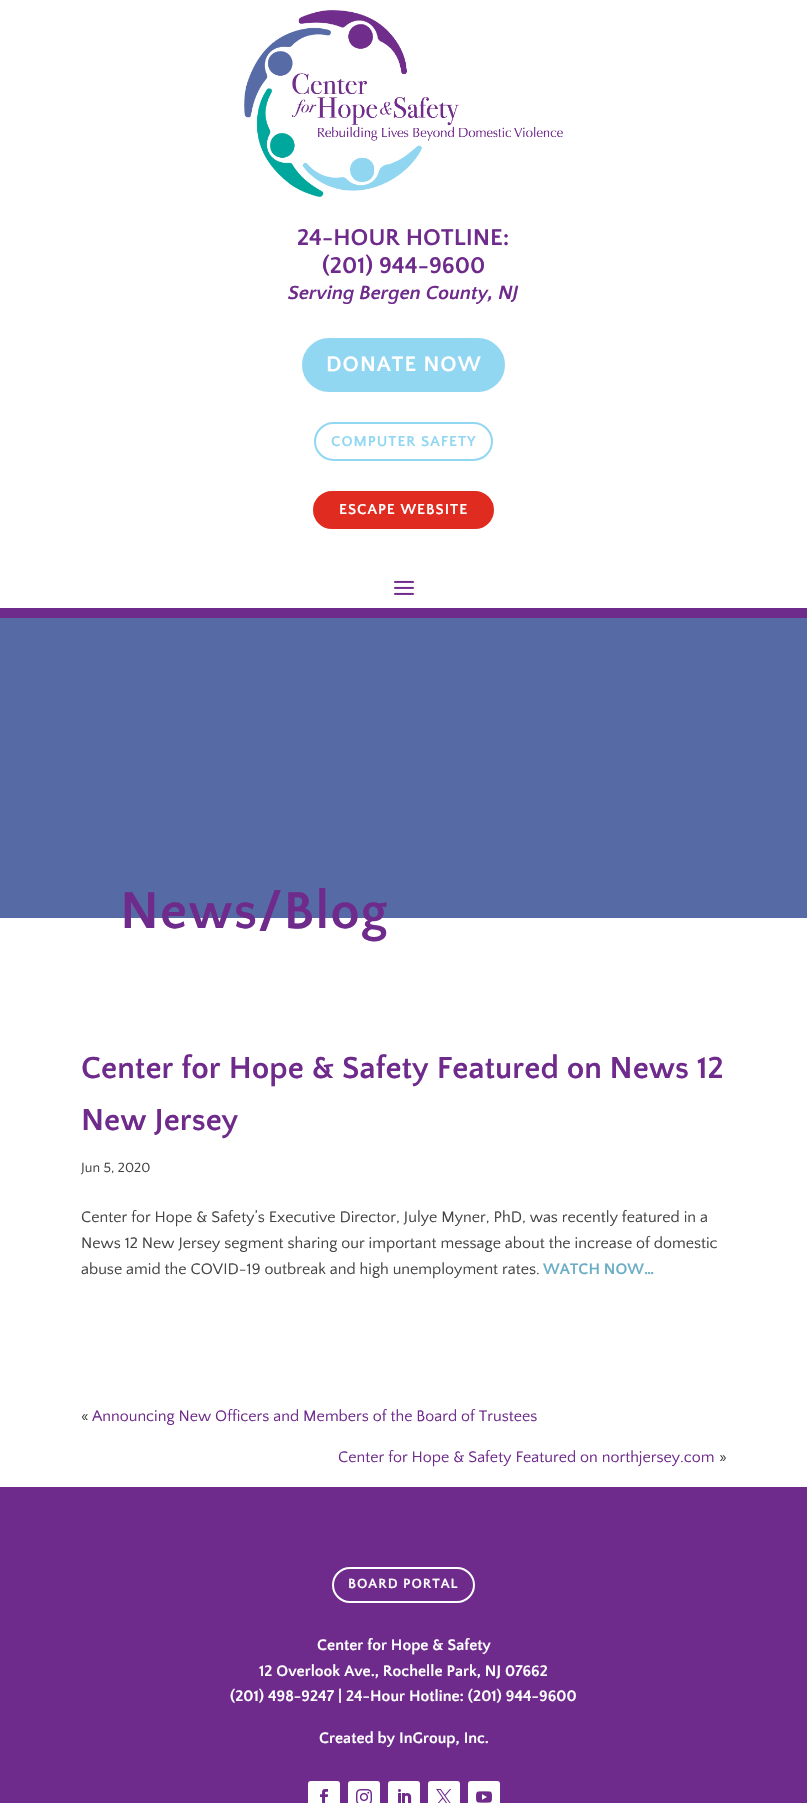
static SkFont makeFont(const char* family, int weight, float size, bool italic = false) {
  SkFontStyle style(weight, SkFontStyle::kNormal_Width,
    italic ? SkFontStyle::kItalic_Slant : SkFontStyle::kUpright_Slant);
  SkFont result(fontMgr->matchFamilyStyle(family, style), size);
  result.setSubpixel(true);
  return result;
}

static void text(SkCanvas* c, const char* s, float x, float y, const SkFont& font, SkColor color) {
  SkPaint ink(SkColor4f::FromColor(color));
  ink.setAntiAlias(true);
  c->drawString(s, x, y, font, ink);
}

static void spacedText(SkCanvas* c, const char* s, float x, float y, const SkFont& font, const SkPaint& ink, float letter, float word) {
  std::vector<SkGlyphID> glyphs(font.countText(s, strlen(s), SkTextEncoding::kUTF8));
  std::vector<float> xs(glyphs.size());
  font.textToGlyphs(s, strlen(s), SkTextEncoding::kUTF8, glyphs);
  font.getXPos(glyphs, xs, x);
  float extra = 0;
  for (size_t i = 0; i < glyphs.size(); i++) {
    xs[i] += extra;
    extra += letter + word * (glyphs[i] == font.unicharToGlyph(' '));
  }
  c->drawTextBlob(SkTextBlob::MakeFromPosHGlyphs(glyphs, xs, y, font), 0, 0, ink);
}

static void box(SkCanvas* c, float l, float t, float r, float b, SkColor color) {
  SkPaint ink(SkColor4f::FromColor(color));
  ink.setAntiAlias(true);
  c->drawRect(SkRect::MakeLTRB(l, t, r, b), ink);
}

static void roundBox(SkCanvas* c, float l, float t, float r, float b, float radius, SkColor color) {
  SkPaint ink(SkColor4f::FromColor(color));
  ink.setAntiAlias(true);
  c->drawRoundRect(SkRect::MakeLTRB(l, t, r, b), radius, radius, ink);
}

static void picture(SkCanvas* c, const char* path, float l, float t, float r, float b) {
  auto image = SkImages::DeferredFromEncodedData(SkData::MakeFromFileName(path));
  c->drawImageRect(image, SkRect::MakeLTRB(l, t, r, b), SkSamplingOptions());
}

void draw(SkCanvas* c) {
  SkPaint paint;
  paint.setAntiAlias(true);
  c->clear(0xffffffff);
  picture(c, "img_01.png", 244, 10, 563, 197);
  SkFont face1 = makeFont("Quattrocento Sans", 700, 24);
  text(c, "24-HOUR HOTLINE:", 297, 245, face1, 0xff6f2b8c);
  text(c, "(201) 944-9600", 322, 273, face1, 0xff6f2b8c);
  SkFont face2 = makeFont("Quattrocento Sans", 700, 20, true);
  text(c, "Serving Bergen County, NJ", 288, 299, face2, 0xff6f2b8c);
  paint.setColor(0xff91d7f2);
  c->drawRoundRect(SkRect::MakeLTRB(303, 339, 504, 391), 26, 26, paint);
  paint.setStyle(SkPaint::kStroke_Style);
  paint.setStrokeWidth(2);
  c->drawRoundRect(SkRect::MakeLTRB(303, 339, 504, 391), 26, 26, paint);
  SkFont face3 = makeFont("Quattrocento Sans", 700, 22);
  paint.setStyle(SkPaint::kFill_Style);
  paint.setColor(0xffffffff);
  spacedText(c, "DONATE NOW", 326, 371, face3, paint, 1, 0);
  paint.setStyle(SkPaint::kStroke_Style);
  paint.setColor(0xff91d7f2);
  c->drawRoundRect(SkRect::MakeLTRB(315, 423, 492, 460), 18.5f, 18.5f, paint);
  SkFont face4 = makeFont("Quattrocento Sans", 700, 15);
  paint.setStyle(SkPaint::kFill_Style);
  spacedText(c, "COMPUTER SAFETY", 331, 446, face4, paint, 1, 0);
  paint.setColor(0xffe02b20);
  c->drawRoundRect(SkRect::MakeLTRB(314, 492, 493, 528), 18, 18, paint);
  paint.setStyle(SkPaint::kStroke_Style);
  c->drawRoundRect(SkRect::MakeLTRB(314, 492, 493, 528), 18, 18, paint);
  paint.setStyle(SkPaint::kFill_Style);
  paint.setColor(0xffffffff);
  spacedText(c, "ESCAPE WEBSITE", 339, 514, face4, paint, 1, 0);
  box(c, 0, 608, 807, 618, 0xff6f2b8c);
  picture(c, "img_02.png", 394, 580, 414, 595);
  box(c, 0, 618, 807, 918, 0xff566aa6);
  SkFont face5 = makeFont("Quattrocento Sans", 700, 54);
  paint.setColor(0xff6f2b8c);
  spacedText(c, "News/Blog", 120, 928, face5, paint, 1, 0);
  SkFont face6 = makeFont("Quattrocento Sans", 700, 32);
  text(c, "Center for Hope & Safety Featured on News 12", 81, 1078, face6, 0xff6f2b8c);
  text(c, "New Jersey", 81, 1130, face6, 0xff6f2b8c);
  SkFont face7 = makeFont("Quattrocento Sans", 400, 14);
  text(c, "Jun 5, 2020", 81, 1172, face7, 0xff444444);
  SkFont face8 = makeFont("Quattrocento Sans", 400, 16);
  text(c, "Center for Hope & Safety’s Executive Director, Julye Myner, PhD, was recently featured in a", 81, 1222, face8, 0xff444444);
  text(c, "News 12 New Jersey segment sharing our important message about the increase of domestic", 81, 1248, face8, 0xff444444);
  text(c, "abuse amid the COVID-19 outbreak and high unemployment rates.", 81, 1274, face8, 0xff444444);
  SkFont face9 = makeFont("Quattrocento Sans", 700, 16);
  text(c, "WATCH NOW…", 543, 1274, face9, 0xff6daec7);
  text(c, "«", 81, 1421, face8, 0xff444444);
  text(c, "Announcing New Officers and Members of the Board of Trustees", 92, 1421, face8, 0xff6f2b8c);
  text(c, "Center for Hope & Safety Featured on northjersey.com", 338, 1462, face8, 0xff6f2b8c);
  text(c, "»", 719, 1462, face8, 0xff444444);
  box(c, 0, 1487, 807, 1803, 0xff6f2b8c);
  paint.setStyle(SkPaint::kStroke_Style);
  paint.setColor(0xffffffff);
  c->drawRoundRect(SkRect::MakeLTRB(333, 1568, 474, 1602), 17, 17, paint);
  SkFont face10 = makeFont("Quattrocento Sans", 700, 14);
  paint.setStyle(SkPaint::kFill_Style);
  spacedText(c, "BOARD PORTAL", 348, 1588, face10, paint, 1, 0);
  text(c, "Center for Hope & Safety", 317, 1650, face9, 0xffffffff);
  text(c, "12 Overlook Ave., Rochelle Park, NJ 07662", 259, 1676, face9, 0xffffffff);
  text(c, "(201) 498-9247 | 24-Hour Hotline: (201) 944-9600", 230, 1701, face9, 0xffffffff);
  text(c, "Created by InGroup, Inc.", 319, 1743, face9, 0xffffffff);
  roundBox(c, 308, 1781, 340, 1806, 3, 0xffffffff);
  picture(c, "img_03.png", 320, 1789, 328, 1803);
  roundBox(c, 348, 1781, 380, 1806, 3, 0xffffffff);
  picture(c, "img_04.png", 356, 1789, 372, 1803);
  roundBox(c, 388, 1781, 420, 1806, 3, 0xffffffff);
  picture(c, "img_05.png", 398, 1789, 412, 1803);
  roundBox(c, 428, 1781, 460, 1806, 3, 0xffffffff);
  picture(c, "img_06.png", 436, 1789, 452, 1803);
  roundBox(c, 468, 1781, 500, 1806, 3, 0xffffffff);
  picture(c, "img_07.png", 476, 1791, 492, 1803);
}
